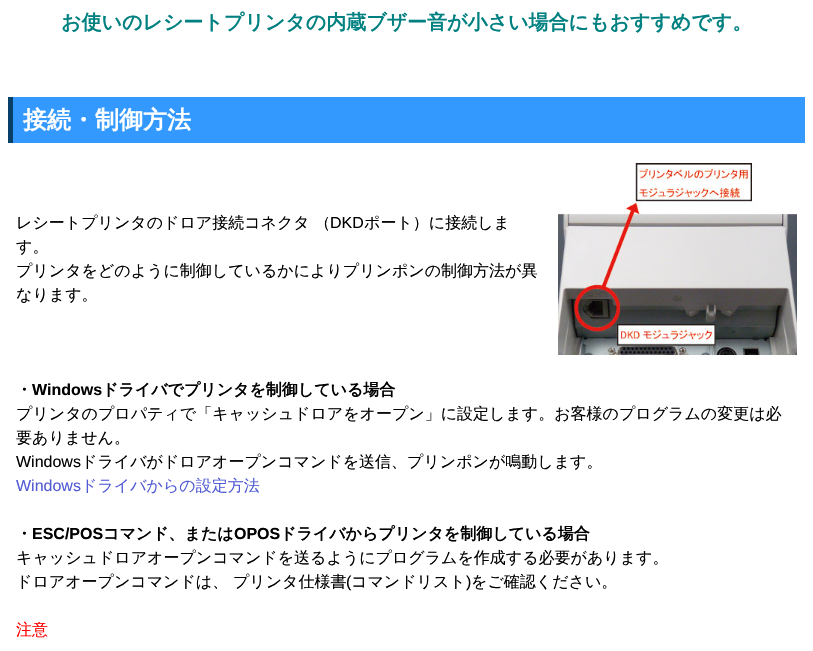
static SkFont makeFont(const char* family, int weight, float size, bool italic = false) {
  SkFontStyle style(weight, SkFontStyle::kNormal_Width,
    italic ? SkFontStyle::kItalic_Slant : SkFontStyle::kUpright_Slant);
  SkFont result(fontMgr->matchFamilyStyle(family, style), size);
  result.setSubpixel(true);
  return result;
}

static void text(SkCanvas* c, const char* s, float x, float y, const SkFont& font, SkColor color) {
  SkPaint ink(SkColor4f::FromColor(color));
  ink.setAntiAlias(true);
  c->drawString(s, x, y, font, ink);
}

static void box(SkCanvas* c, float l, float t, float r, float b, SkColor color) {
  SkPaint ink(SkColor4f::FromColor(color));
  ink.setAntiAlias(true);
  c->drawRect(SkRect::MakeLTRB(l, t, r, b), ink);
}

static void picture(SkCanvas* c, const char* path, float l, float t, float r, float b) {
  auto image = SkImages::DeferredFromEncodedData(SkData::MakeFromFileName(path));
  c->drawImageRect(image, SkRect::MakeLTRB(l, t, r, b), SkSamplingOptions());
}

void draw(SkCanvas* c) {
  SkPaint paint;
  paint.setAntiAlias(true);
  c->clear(0xffffffff);
  SkFont face1 = makeFont("WenQuanYi Zen Hei", 700, 20);
  text(c, "お使いのレシートプリンタの内蔵ブザー音が小さい場合にもおすすめです。", 61, 29, face1, 0xff008080);
  box(c, 13, 97, 805, 143, 0xff3399ff);
  box(c, 8, 97, 13, 143, 0xff094067);
  SkFont face2 = makeFont("WenQuanYi Zen Hei", 700, 24);
  text(c, "接続・制御方法", 23, 128, face2, 0xffffffff);
  SkFont face3 = makeFont("WenQuanYi Zen Hei", 500, 16);
  text(c, "レシートプリンタのドロア接続コネクタ （", 16, 228, face3, 0xff000000);
  SkFont face4 = makeFont("Liberation Sans", 400, 16);
  text(c, "DKD", 330, 228, face4, 0xff000000);
  text(c, "ポート）に接続しま", 364, 228, face3, 0xff000000);
  text(c, "す。", 16, 252, face3, 0xff000000);
  text(c, "プリンタをどのように制御しているかによりプリンポンの制御方法が異", 16, 276, face3, 0xff000000);
  text(c, "なります。", 16, 300, face3, 0xff000000);
  picture(c, "img_01.png", 558, 163, 797, 355);
  SkFont face5 = makeFont("WenQuanYi Zen Hei", 700, 16);
  text(c, "・", 16, 395, face5, 0xff000000);
  SkFont face6 = makeFont("Liberation Sans", 700, 16);
  text(c, "Windows", 32, 395, face6, 0xff000000);
  text(c, "ドライバでプリンタを制御している場合", 102, 395, face5, 0xff000000);
  text(c, "プリンタのプロパティで「キャッシュドロアをオープン」に設定します。お客様のプログラムの変更は必", 16, 419, face3, 0xff000000);
  text(c, "要ありません。", 16, 443, face3, 0xff000000);
  text(c, "Windows", 16, 467, face4, 0xff000000);
  text(c, "ドライバがドロアオープンコマンドを送信、プリンポンが鳴動します。", 81, 467, face3, 0xff000000);
  text(c, "Windows", 16, 491, face4, 0xff515bd4);
  text(c, "ドライバからの設定方法", 81, 491, face3, 0xff515bd4);
  text(c, "・", 16, 539, face5, 0xff000000);
  text(c, "ESC/POS", 32, 539, face6, 0xff000000);
  text(c, "コマンド、または", 103, 539, face5, 0xff000000);
  text(c, "OPOS", 234, 539, face6, 0xff000000);
  text(c, "ドライバからプリンタを制御している場合", 280, 539, face5, 0xff000000);
  text(c, "キャッシュドロアオープンコマンドを送るようにプログラムを作成する必要があります。", 16, 563, face3, 0xff000000);
  text(c, "ドロアオープンコマンドは、 プリンタ仕様書", 16, 587, face3, 0xff000000);
  text(c, "(", 346, 587, face4, 0xff000000);
  text(c, "コマンドリスト", 351, 587, face3, 0xff000000);
  text(c, ")", 466, 587, face4, 0xff000000);
  text(c, "をご確認ください。", 471, 587, face3, 0xff000000);
  text(c, "注意", 16, 635, face3, 0xffff0000);
}
